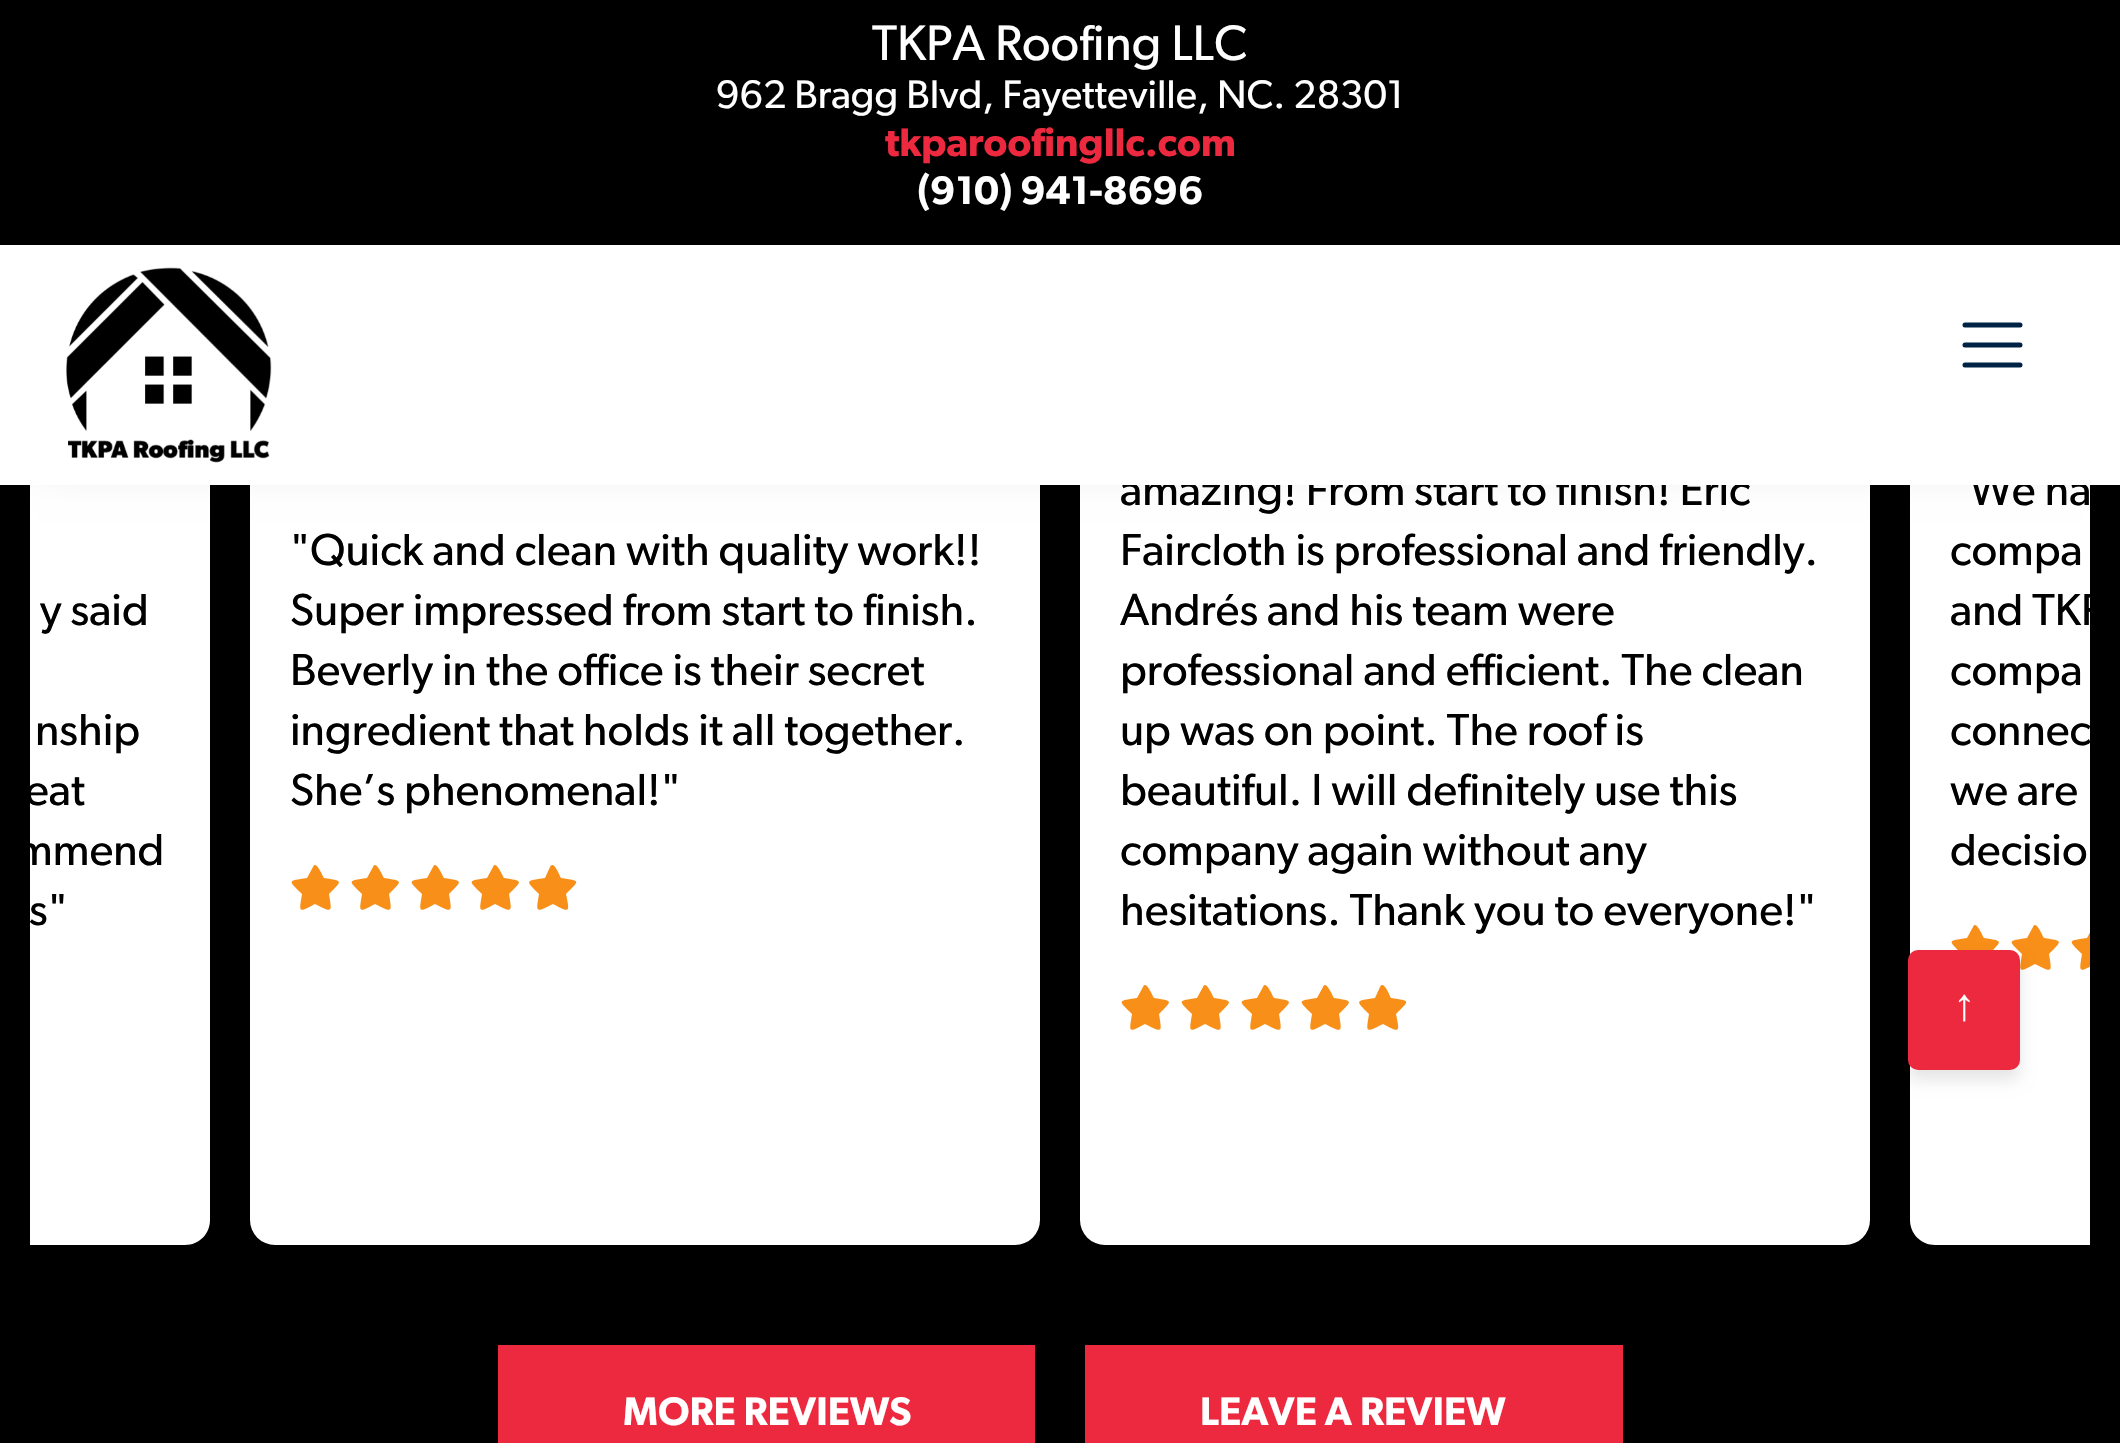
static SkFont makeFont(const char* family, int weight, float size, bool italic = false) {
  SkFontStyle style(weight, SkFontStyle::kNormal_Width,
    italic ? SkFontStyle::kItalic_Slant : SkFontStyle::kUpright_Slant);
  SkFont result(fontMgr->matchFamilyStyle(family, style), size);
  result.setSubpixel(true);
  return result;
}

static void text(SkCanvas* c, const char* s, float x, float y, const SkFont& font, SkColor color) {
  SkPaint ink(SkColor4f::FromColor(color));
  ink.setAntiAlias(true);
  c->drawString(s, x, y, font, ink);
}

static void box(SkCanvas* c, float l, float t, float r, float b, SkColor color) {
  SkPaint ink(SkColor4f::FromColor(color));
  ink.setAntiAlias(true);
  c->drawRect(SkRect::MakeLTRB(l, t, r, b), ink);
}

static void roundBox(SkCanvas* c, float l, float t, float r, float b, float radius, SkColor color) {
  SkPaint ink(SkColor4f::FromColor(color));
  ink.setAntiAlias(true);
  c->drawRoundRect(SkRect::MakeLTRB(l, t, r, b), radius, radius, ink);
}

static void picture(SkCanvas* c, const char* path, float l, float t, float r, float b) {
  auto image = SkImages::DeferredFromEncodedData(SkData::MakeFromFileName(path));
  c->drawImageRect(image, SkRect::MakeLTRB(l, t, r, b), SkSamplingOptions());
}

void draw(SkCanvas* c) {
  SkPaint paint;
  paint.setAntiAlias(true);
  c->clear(0xff000000);
  paint.setColor(0xffffffff);
  c->drawPath(SkPathBuilder().moveTo(30, 100).lineTo(185, 100).cubicTo(199, 100, 210, 111, 210, 125).lineTo(210, 1220).cubicTo(210, 1234, 199, 1245, 185, 1245).lineTo(30, 1245).close().detach(), paint);
  roundBox(c, 250, 100, 1040, 1245, 25, 0xffffffff);
  roundBox(c, 1080, 100, 1870, 1245, 25, 0xffffffff);
  c->drawPath(SkPathBuilder().moveTo(1935, 100).lineTo(2090, 100).lineTo(2090, 1245).lineTo(1935, 1245).cubicTo(1921, 1245, 1910, 1234, 1910, 1220).lineTo(1910, 125).cubicTo(1910, 111, 1921, 100, 1935, 100).close().detach(), paint);
  box(c, 30, 100, 2090, 245, 0xff000000);
  SkFont face1 = makeFont("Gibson", 400, 50);
  text(c, "TKPA Roofing LLC", 872, 60, face1, 0xffffffff);
  SkFont face2 = makeFont("Gibson", 400, 40);
  text(c, "962 Bragg Blvd, Fayetteville, NC. 28301", 716, 108, face2, 0xffffffff);
  SkFont face3 = makeFont("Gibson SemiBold", 600, 40);
  text(c, "tkparoofingllc.com", 885, 156, face3, 0xffed293f);
  text(c, "(910) 941-8696", 917, 204, face3, 0xffffffff);
  paint.setColor(0x26000000);
  paint.setMaskFilter(SkMaskFilter::MakeBlur(kNormal_SkBlurStyle, 19));
  c->drawRect(SkRect::MakeLTRB(38, 300, 2083, 465), paint);
  paint.setMaskFilter(nullptr);
  SkFont face4 = makeFont("Gibson", 400, 45);
  text(c, "amazing! From start to finish! Eric", 1120, 505, face4, 0xff000000);
  text(c, "We ha", 1970, 505, face4, 0xff000000);
  box(c, 0, 245, 2120, 485, 0xffffffff);
  picture(c, "img_01.png", 66, 267, 272, 463);
  paint.setStyle(SkPaint::kStroke_Style);
  paint.setStrokeWidth(5);
  paint.setStrokeCap(SkPaint::kRound_Cap);
  paint.setColor(0xff002244);
  c->drawPath(SkPathBuilder().moveTo(1965, 325).lineTo(2020, 325).moveTo(1965, 345).lineTo(2020, 345).moveTo(1965, 365).lineTo(2020, 365).detach(), paint);
  text(c, "y said", 40, 625, face4, 0xff000000);
  text(c, "nship", 35, 745, face4, 0xff000000);
  c->save();
  c->clipRect(SkRect::MakeLTRB(30, 60, 2090, 1285));
  text(c, "eat", 25, 805, face4, 0xff000000);
  text(c, "mmend", 16, 865, face4, 0xff000000);
  c->restore();
  text(c, "s\"", 29, 925, face4, 0xff000000);
  text(c, "\"Quick and clean with quality work!!", 290, 565, face4, 0xff000000);
  text(c, "Super impressed from start to finish.", 290, 625, face4, 0xff000000);
  text(c, "Beverly in the office is their secret", 290, 685, face4, 0xff000000);
  text(c, "ingredient that holds it all together.", 290, 745, face4, 0xff000000);
  text(c, "She’s phenomenal!\"", 290, 805, face4, 0xff000000);
  paint.setStyle(SkPaint::kFill_Style);
  paint.setColor(0xfff78f18);
  c->drawPath(SkPathBuilder().moveTo(313, 867).lineTo(307, 878).cubicTo(287, 881, 288, 880, 302, 894).cubicTo(299, 913, 298, 913, 315, 904).cubicTo(333, 913, 332, 913, 329, 894).cubicTo(343, 880, 343, 881, 324, 878).cubicTo(323, 877, 316, 859, 313, 867).close().detach(), paint);
  c->drawPath(SkPathBuilder().moveTo(373, 867).lineTo(367, 878).cubicTo(347, 881, 348, 880, 362, 894).cubicTo(359, 913, 358, 913, 375, 904).cubicTo(393, 913, 392, 913, 389, 894).cubicTo(403, 880, 403, 881, 384, 878).cubicTo(383, 877, 376, 859, 373, 867).close().detach(), paint);
  c->drawPath(SkPathBuilder().moveTo(433, 867).lineTo(427, 878).cubicTo(407, 881, 408, 880, 422, 894).cubicTo(419, 913, 418, 913, 435, 904).cubicTo(453, 913, 452, 913, 449, 894).cubicTo(463, 880, 463, 881, 444, 878).cubicTo(443, 877, 436, 859, 433, 867).close().detach(), paint);
  c->drawPath(SkPathBuilder().moveTo(493, 867).lineTo(487, 878).cubicTo(467, 881, 468, 880, 482, 894).cubicTo(479, 913, 478, 913, 495, 904).cubicTo(513, 913, 512, 913, 509, 894).cubicTo(523, 880, 523, 881, 504, 878).cubicTo(503, 877, 496, 859, 493, 867).close().detach(), paint);
  c->drawPath(SkPathBuilder().moveTo(550, 867).lineTo(545, 878).cubicTo(525, 881, 525, 880, 539, 894).cubicTo(536, 913, 535, 913, 553, 904).cubicTo(570, 913, 570, 913, 566, 894).cubicTo(580, 880, 581, 881, 561, 878).cubicTo(560, 877, 554, 859, 550, 867).close().detach(), paint);
  text(c, "Faircloth is professional and friendly.", 1120, 565, face4, 0xff000000);
  text(c, "Andrés and his team were", 1120, 625, face4, 0xff000000);
  text(c, "professional and efficient. The clean", 1120, 685, face4, 0xff000000);
  text(c, "up was on point. The roof is", 1120, 745, face4, 0xff000000);
  text(c, "beautiful. I will definitely use this", 1120, 805, face4, 0xff000000);
  text(c, "company again without any", 1120, 865, face4, 0xff000000);
  text(c, "hesitations. Thank you to everyone!\"", 1120, 925, face4, 0xff000000);
  c->drawPath(SkPathBuilder().moveTo(1143, 987).lineTo(1137, 998).cubicTo(1117, 1001, 1118, 1000, 1132, 1014).cubicTo(1129, 1033, 1128, 1033, 1145, 1024).cubicTo(1163, 1033, 1162, 1033, 1159, 1014).cubicTo(1173, 1000, 1173, 1001, 1154, 998).cubicTo(1153, 997, 1146, 979, 1143, 987).close().detach(), paint);
  c->drawPath(SkPathBuilder().moveTo(1203, 987).lineTo(1197, 998).cubicTo(1177, 1001, 1178, 1000, 1192, 1014).cubicTo(1189, 1033, 1188, 1033, 1205, 1024).cubicTo(1223, 1033, 1222, 1033, 1219, 1014).cubicTo(1233, 1000, 1233, 1001, 1214, 998).cubicTo(1213, 997, 1206, 979, 1203, 987).close().detach(), paint);
  c->drawPath(SkPathBuilder().moveTo(1263, 987).lineTo(1257, 998).cubicTo(1237, 1001, 1238, 1000, 1252, 1014).cubicTo(1249, 1033, 1248, 1033, 1265, 1024).cubicTo(1283, 1033, 1282, 1033, 1279, 1014).cubicTo(1293, 1000, 1293, 1001, 1274, 998).cubicTo(1273, 997, 1266, 979, 1263, 987).close().detach(), paint);
  c->drawPath(SkPathBuilder().moveTo(1323, 987).lineTo(1317, 998).cubicTo(1297, 1001, 1298, 1000, 1312, 1014).cubicTo(1309, 1033, 1308, 1033, 1325, 1024).cubicTo(1343, 1033, 1342, 1033, 1339, 1014).cubicTo(1353, 1000, 1353, 1001, 1334, 998).cubicTo(1333, 997, 1326, 979, 1323, 987).close().detach(), paint);
  c->drawPath(SkPathBuilder().moveTo(1380, 987).lineTo(1375, 998).cubicTo(1355, 1001, 1355, 1000, 1369, 1014).cubicTo(1366, 1033, 1365, 1033, 1383, 1024).cubicTo(1400, 1033, 1400, 1033, 1396, 1014).cubicTo(1410, 1000, 1411, 1001, 1391, 998).cubicTo(1390, 997, 1384, 979, 1380, 987).close().detach(), paint);
  text(c, "compa", 1950, 565, face4, 0xff000000);
  c->save();
  c->clipRect(SkRect::MakeLTRB(30, 60, 2090, 1285));
  text(c, "and TKP", 1950, 625, face4, 0xff000000);
  c->restore();
  text(c, "compa", 1950, 685, face4, 0xff000000);
  c->save();
  c->clipRect(SkRect::MakeLTRB(30, 60, 2090, 1285));
  text(c, "connec", 1950, 745, face4, 0xff000000);
  c->restore();
  text(c, "we are", 1950, 805, face4, 0xff000000);
  text(c, "decisio", 1950, 865, face4, 0xff000000);
  c->drawPath(SkPathBuilder().moveTo(1973, 927).lineTo(1967, 938).cubicTo(1947, 941, 1948, 940, 1962, 954).cubicTo(1959, 973, 1958, 973, 1975, 964).cubicTo(1993, 973, 1992, 973, 1989, 954).cubicTo(2003, 940, 2003, 941, 1984, 938).cubicTo(1983, 937, 1976, 919, 1973, 927).close().detach(), paint);
  c->drawPath(SkPathBuilder().moveTo(2033, 927).lineTo(2027, 938).cubicTo(2007, 941, 2008, 940, 2022, 954).cubicTo(2019, 973, 2018, 973, 2035, 964).cubicTo(2053, 973, 2052, 973, 2049, 954).cubicTo(2063, 940, 2063, 941, 2044, 938).cubicTo(2043, 937, 2036, 919, 2033, 927).close().detach(), paint);
  c->save();
  c->clipRect(SkRect::MakeLTRB(30, 60, 2090, 1285));
  c->drawPath(SkPathBuilder().moveTo(2093, 927).lineTo(2087, 938).cubicTo(2067, 941, 2068, 940, 2082, 954).cubicTo(2079, 973, 2078, 973, 2095, 964).cubicTo(2113, 973, 2112, 973, 2109, 954).cubicTo(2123, 940, 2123, 941, 2104, 938).cubicTo(2103, 937, 2096, 919, 2093, 927).close().detach(), paint);
  c->restore();
  box(c, 498, 1345, 1035, 1443, 0xffed293f);
  text(c, "MORE REVIEWS", 623, 1425, face3, 0xffffffff);
  box(c, 1085, 1345, 1623, 1443, 0xffed293f);
  text(c, "LEAVE A REVIEW", 1200, 1425, face3, 0xffffffff);
  paint.setColor(0x1a000000);
  paint.setMaskFilter(SkMaskFilter::MakeBlur(kNormal_SkBlurStyle, 7.5f));
  c->drawRoundRect(SkRect::MakeLTRB(1908, 960, 2020, 1080), 10, 10, paint);
  paint.setMaskFilter(nullptr);
  roundBox(c, 1908, 950, 2020, 1070, 10, 0xffed293f);
  SkFont face5 = makeFont("Liberation Sans", 400, 45);
  text(c, "↑", 1953, 1020, face5, 0xffffffff);
}
